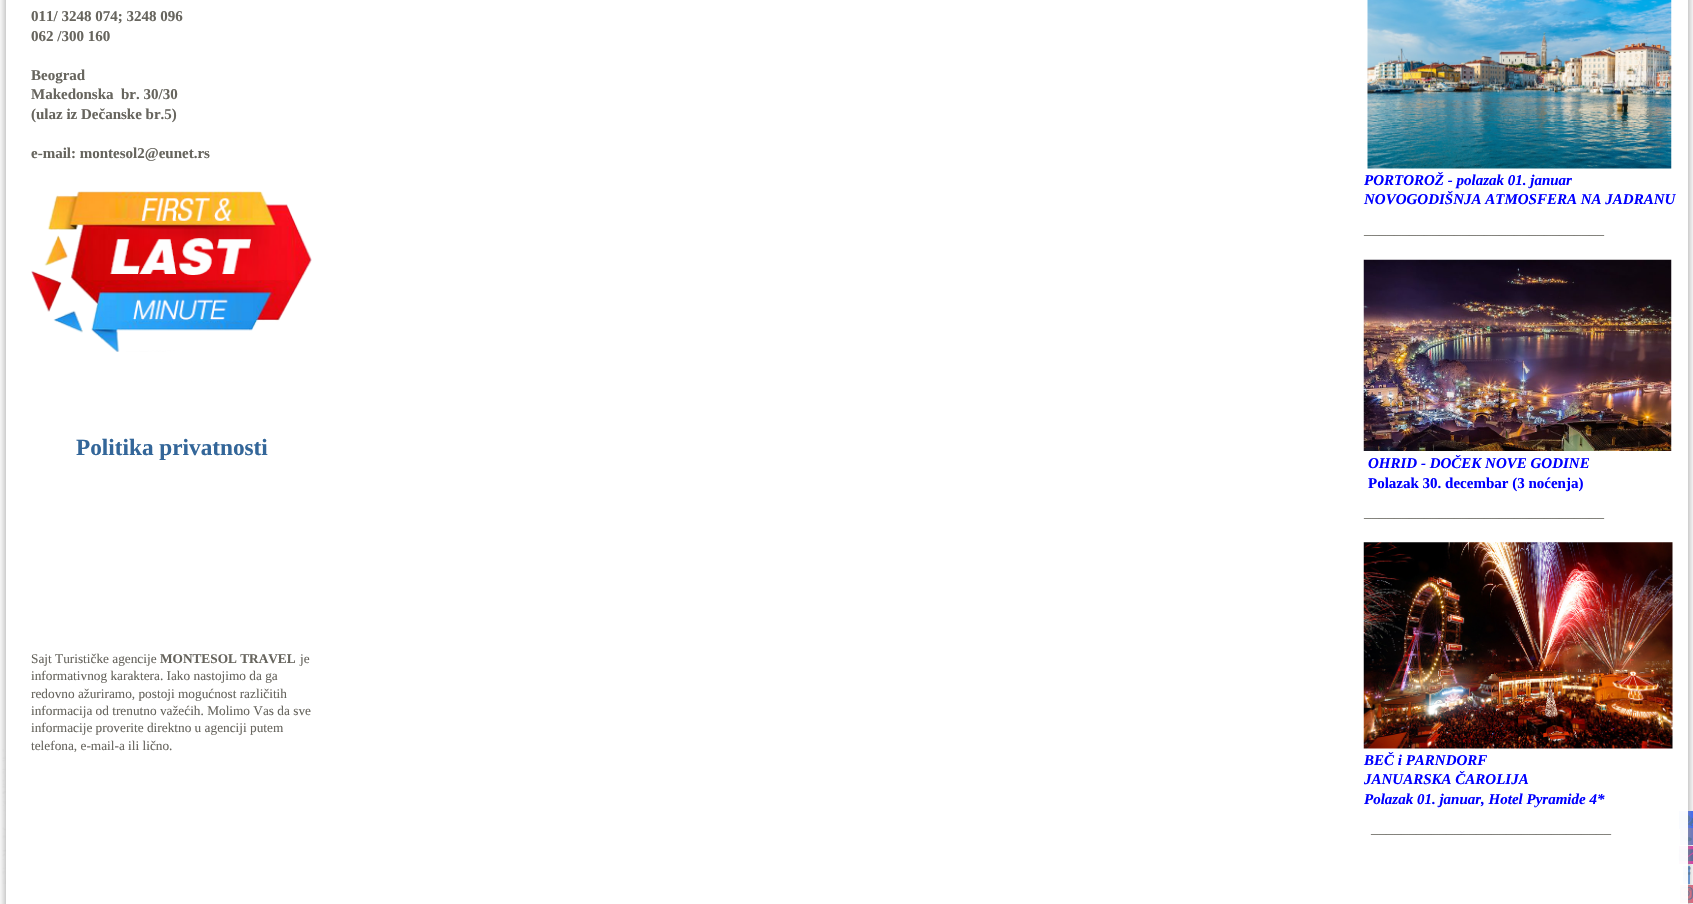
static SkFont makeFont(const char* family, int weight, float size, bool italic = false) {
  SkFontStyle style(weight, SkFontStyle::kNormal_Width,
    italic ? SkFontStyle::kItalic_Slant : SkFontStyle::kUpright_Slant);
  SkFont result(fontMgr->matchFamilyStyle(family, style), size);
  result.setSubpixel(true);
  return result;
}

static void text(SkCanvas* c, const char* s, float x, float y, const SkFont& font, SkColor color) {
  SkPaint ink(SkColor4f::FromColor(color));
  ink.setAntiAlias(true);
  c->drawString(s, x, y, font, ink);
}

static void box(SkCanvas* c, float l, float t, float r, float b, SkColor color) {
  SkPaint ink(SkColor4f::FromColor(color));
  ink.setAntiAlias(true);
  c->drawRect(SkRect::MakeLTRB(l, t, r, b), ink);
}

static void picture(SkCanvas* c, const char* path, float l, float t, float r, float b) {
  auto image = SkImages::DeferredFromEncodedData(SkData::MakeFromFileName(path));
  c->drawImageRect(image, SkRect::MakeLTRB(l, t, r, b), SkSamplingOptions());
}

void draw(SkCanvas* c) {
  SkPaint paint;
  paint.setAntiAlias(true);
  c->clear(0xffffffff);
  picture(c, "img_01.png", 2, 749, 9, 884);
  box(c, 1679, 811, 1693, 829, 0xff3363ff);
  picture(c, "img_06.png", 1678, 814, 1693, 826);
  box(c, 1680, 828, 1693, 845, 0xff6574c4);
  picture(c, "img_07.png", 1680, 829, 1692, 842);
  box(c, 1679, 846, 1693, 864, 0xffde33a5);
  picture(c, "img_08.png", 1678, 849, 1693, 862);
  box(c, 1683, 866, 1690, 884, 0xff4b92ef);
  picture(c, "img_09.png", 1683, 867, 1691, 882);
  box(c, 1680, 885, 1693, 903, 0xffe5617b);
  picture(c, "img_10.png", 1680, 887, 1693, 900);
  c->save();
  c->clipPath(SkPathBuilder(SkPathFillType::kEvenOdd).moveTo(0, 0).lineTo(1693, 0).lineTo(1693, 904).lineTo(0, 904).close().moveTo(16, -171).lineTo(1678, -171).cubicTo(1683.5f, -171, 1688, -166.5f, 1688, -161).lineTo(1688, 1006).cubicTo(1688, 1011.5f, 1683.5f, 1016, 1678, 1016).lineTo(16, 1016).cubicTo(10.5f, 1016, 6, 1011.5f, 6, 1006).lineTo(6, -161).cubicTo(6, -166.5f, 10.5f, -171, 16, -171).close().detach(), true);
  paint.setColor(0xff999999);
  paint.setMaskFilter(SkMaskFilter::MakeBlur(kNormal_SkBlurStyle, 5));
  c->drawRoundRect(SkRect::MakeLTRB(6, -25, 1688, 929), 10, 10, paint);
  paint.setMaskFilter(nullptr);
  c->restore();
  box(c, 6, 0, 1688, 904, 0xf7ffffff);
  SkFont face1 = makeFont("Liberation Serif", 700, 15);
  text(c, "011/ 3248 074; 3248 096", 31, 21, face1, 0xff67655e);
  text(c, "062 /300 160", 31, 41, face1, 0xff67655e);
  text(c, "Beograd", 31, 80, face1, 0xff67655e);
  text(c, "Makedonska  br. 30/30", 31, 99, face1, 0xff67655e);
  text(c, "(ulaz iz Dečanske br.5)", 31, 119, face1, 0xff67655e);
  text(c, "e-mail: montesol2@eunet.rs", 31, 158, face1, 0xff67655e);
  picture(c, "img_02.png", 31, 191, 312, 352);
  SkFont face2 = makeFont("Liberation Serif", 700, 23.25f);
  text(c, "Politika privatnosti", 76, 455, face2, 0xff336699);
  SkFont face3 = makeFont("Liberation Serif", 400, 13.3f);
  text(c, "Sajt Turističke agencije", 31, 663, face3, 0xff67655e);
  SkFont face4 = makeFont("Liberation Serif", 700, 13.3f);
  text(c, "MONTESOL TRAVEL", 160, 663, face4, 0xff67655e);
  text(c, "je", 300, 663, face3, 0xff67655e);
  text(c, "informativnog karaktera. Iako nastojimo da ga", 31, 680, face3, 0xff67655e);
  text(c, "redovno ažuriramo, postoji mogućnost različitih", 31, 698, face3, 0xff67655e);
  text(c, "informacija od trenutno važećih. Molimo Vas da sve", 31, 715, face3, 0xff67655e);
  text(c, "informacije proverite direktno u agenciji putem", 31, 732, face3, 0xff67655e);
  text(c, "telefona, e-mail-a ili lično.", 31, 750, face3, 0xff67655e);
  picture(c, "img_03.png", 1367, 0, 1672, 169);
  SkFont face5 = makeFont("Liberation Serif", 700, 15, true);
  text(c, "PORTOROŽ - polazak 01. januar", 1364, 185, face5, 0xff0000ff);
  text(c, "NOVOGODIŠNJA ATMOSFERA NA JADRANU", 1364, 204, face5, 0xff0000ff);
  SkFont face6 = makeFont("Liberation Serif", 400, 15);
  text(c, "________________________________", 1364, 234, face6, 0xff67655e);
  picture(c, "img_04.png", 1363, 259, 1672, 451);
  text(c, "OHRID - DOČEK NOVE GODINE", 1368, 468, face5, 0xff0000ff);
  text(c, "Polazak 30. decembar (3 noćenja)", 1368, 488, face1, 0xff0000ff);
  text(c, "________________________________", 1364, 517, face6, 0xff67655e);
  picture(c, "img_05.png", 1363, 542, 1673, 749);
  text(c, "BEČ i PARNDORF", 1364, 765, face5, 0xff0000ff);
  text(c, "JANUARSKA ČAROLIJA", 1364, 784, face5, 0xff0000ff);
  text(c, "Polazak 01. januar, Hotel Pyramide 4*", 1364, 804, face5, 0xff0000ff);
  text(c, "________________________________", 1371, 833, face6, 0xff67655e);
}
